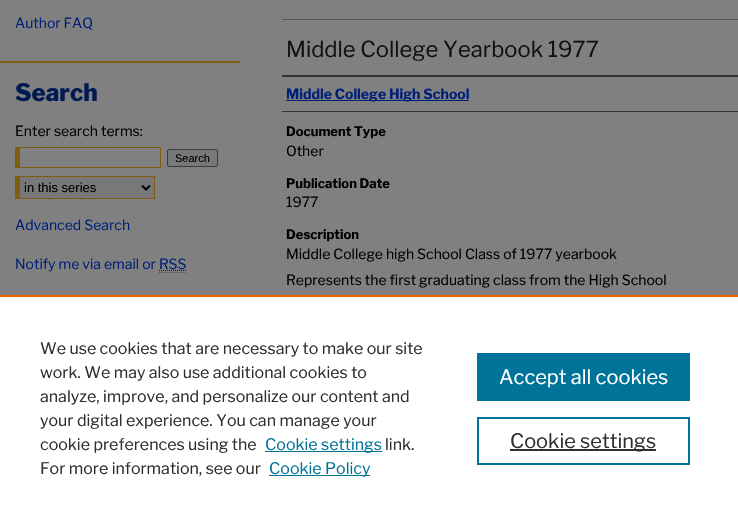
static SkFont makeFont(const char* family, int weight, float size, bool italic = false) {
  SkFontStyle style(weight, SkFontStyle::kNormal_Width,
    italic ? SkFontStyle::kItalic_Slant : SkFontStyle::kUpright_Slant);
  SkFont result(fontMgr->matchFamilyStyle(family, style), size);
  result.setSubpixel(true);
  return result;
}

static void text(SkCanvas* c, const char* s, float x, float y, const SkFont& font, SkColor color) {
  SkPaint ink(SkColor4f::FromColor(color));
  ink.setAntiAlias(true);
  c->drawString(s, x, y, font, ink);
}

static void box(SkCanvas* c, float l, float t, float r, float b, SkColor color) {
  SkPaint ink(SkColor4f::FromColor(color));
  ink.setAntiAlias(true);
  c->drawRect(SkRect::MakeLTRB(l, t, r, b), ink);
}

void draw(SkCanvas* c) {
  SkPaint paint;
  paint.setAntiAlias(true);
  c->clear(0xff808080);
  SkFont face1 = makeFont("Libre Franklin", 400, 14);
  text(c, "Author FAQ", 15, 28, face1, 0xff002078);
  box(c, 0, 61, 240, 63, 0xff805c0e);
  SkFont face2 = makeFont("Libre Franklin", 800, 24);
  text(c, "Search", 15, 101, face2, 0xff011a51);
  text(c, "Enter search terms:", 15, 136, face1, 0xff000000);
  box(c, 15, 147, 161, 148, 0xff805c0e);
  box(c, 160, 147, 161, 168, 0xff805c0e);
  box(c, 15, 167, 161, 168, 0xff805c0e);
  box(c, 15, 147, 20, 168, 0xff805c0e);
  paint.setColor(0xff787878);
  c->drawRoundRect(SkRect::MakeLTRB(167.5f, 149.5f, 217.5f, 166.5f), 1.5f, 1.5f, paint);
  paint.setStyle(SkPaint::kStroke_Style);
  paint.setStrokeWidth(1);
  paint.setColor(0xff3b3b3b);
  c->drawRoundRect(SkRect::MakeLTRB(167.5f, 149.5f, 217.5f, 166.5f), 1.5f, 1.5f, paint);
  SkFont face3 = makeFont("Liberation Sans", 400, 11);
  text(c, "Search", 175, 162, face3, 0xff000000);
  box(c, 20, 177, 154, 198, 0xff787878);
  box(c, 15, 176, 155, 177, 0xff805c0e);
  box(c, 154, 176, 155, 199, 0xff805c0e);
  box(c, 15, 198, 155, 199, 0xff805c0e);
  box(c, 15, 176, 20, 199, 0xff805c0e);
  paint.setStrokeWidth(2);
  paint.setColor(0xff000000);
  c->drawPath(SkPathBuilder().moveTo(142, 185.5f).lineTo(146, 189.5f).lineTo(150, 185.5f).detach(), paint);
  SkFont face4 = makeFont("Liberation Sans", 400, 13);
  text(c, "in this series", 24, 192, face4, 0xff000000);
  text(c, "Advanced Search", 15, 230, face1, 0xff002078);
  text(c, "Notify me via email or RSS", 15, 269, face1, 0xff002078);
  paint.setStrokeWidth(1);
  paint.setColor(0xff002078);
  paint.setPathEffect(SkDashPathEffect::Make({{1, 1}}, 0));
  c->drawPath(SkPathBuilder().moveTo(159, 270.5f).lineTo(186.5f, 270.5f).detach(), paint);
  paint.setPathEffect(nullptr);
  paint.setColor(0xff4d4d4d);
  paint.setPathEffect(SkDashPathEffect::Make({{1, 1}}, 0));
  c->drawPath(SkPathBuilder().moveTo(159, 272.5f).lineTo(187, 272.5f).detach(), paint);
  paint.setPathEffect(nullptr);
  box(c, 282, 19, 738, 20, 0xff555555);
  SkFont face5 = makeFont("Libre Franklin", 400, 22);
  text(c, "Middle College Yearbook 1977", 286, 57, face5, 0xff111111);
  box(c, 282, 75, 738, 77, 0xff333333);
  box(c, 282, 111, 738, 112, 0xff333333);
  box(c, 286, 100, 469, 101, 0xff002078);
  SkFont face6 = makeFont("Libre Franklin", 700, 14);
  text(c, "Middle College High School", 286, 99, face6, 0xff002078);
  SkFont face7 = makeFont("Libre Franklin", 700, 13);
  text(c, "Document Type", 286, 136, face7, 0xff000000);
  text(c, "Other", 286, 156, face1, 0xff000000);
  text(c, "Publication Date", 286, 188, face7, 0xff000000);
  text(c, "1977", 286, 207, face1, 0xff000000);
  text(c, "Description", 286, 239, face7, 0xff000000);
  text(c, "Middle College high School Class of 1977 yearbook", 286, 259, face1, 0xff000000);
  text(c, "Represents the first graduating class from the High School", 286, 285, face1, 0xff000000);
  box(c, 0, 297, 738, 521, 0xffffffff);
  box(c, 0, 295, 738, 297, 0xffeb6500);
  SkFont face8 = makeFont("Libre Franklin", 400, 16);
  text(c, "We use cookies that are necessary to make our site", 40, 354, face8, 0xff2e2e2e);
  text(c, "work. We may also use additional cookies to", 40, 378, face8, 0xff2e2e2e);
  text(c, "analyze, improve, and personalize our content and", 40, 402, face8, 0xff2e2e2e);
  text(c, "your digital experience. You can manage your", 40, 426, face8, 0xff2e2e2e);
  text(c, "cookie preferences using the", 40, 450, face8, 0xff2e2e2e);
  box(c, 265, 451, 382, 452, 0xff007398);
  text(c, "Cookie settings", 265, 450, face8, 0xff007398);
  text(c, "link.", 385, 450, face8, 0xff2e2e2e);
  text(c, "For more information, see our", 40, 474, face8, 0xff2e2e2e);
  box(c, 269, 475, 370, 476, 0xff007398);
  text(c, "Cookie Policy", 269, 474, face8, 0xff007398);
  box(c, 477, 353, 690, 401, 0xff007398);
  SkFont face9 = makeFont("Libre Franklin", 400, 20);
  text(c, "Accept all cookies", 499, 384, face9, 0xffffffff);
  paint.setStrokeWidth(2);
  paint.setColor(0xff007398);
  c->drawRect(SkRect::MakeLTRB(478, 418, 689, 464), paint);
  box(c, 510, 449, 656, 451, 0xff2e2e2e);
  text(c, "Cookie settings", 510, 448, face9, 0xff2e2e2e);
}
